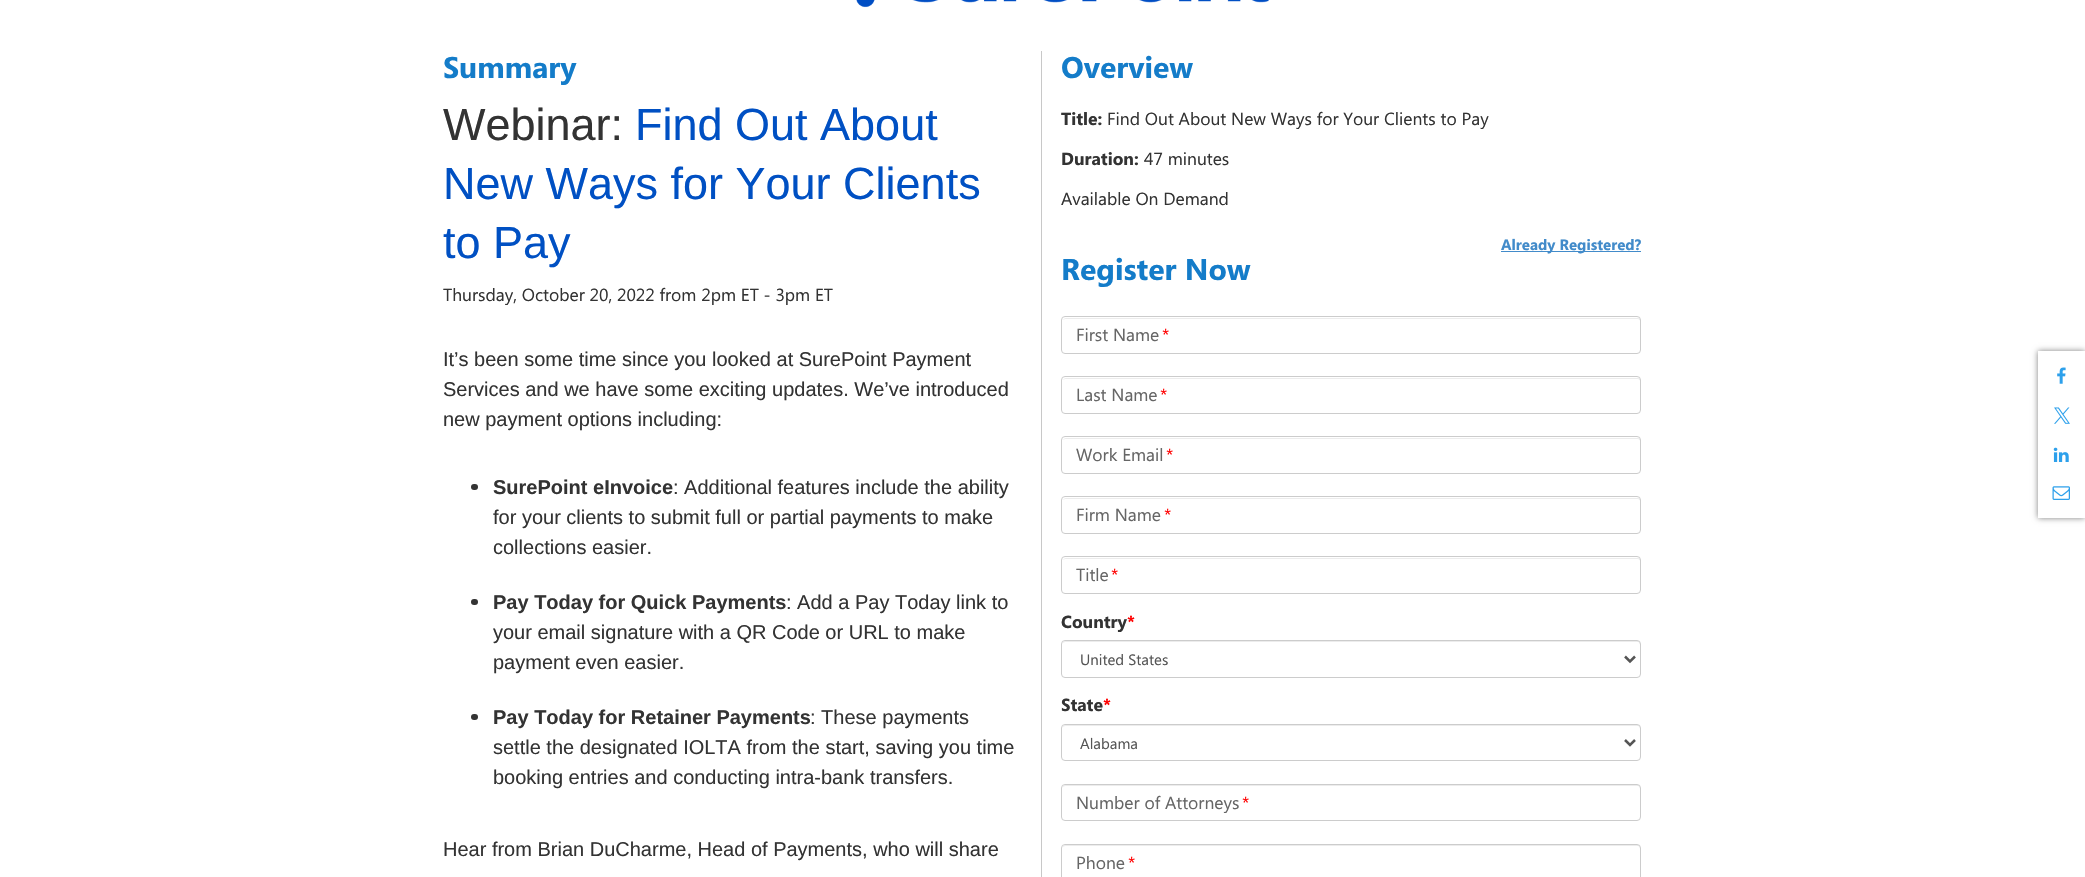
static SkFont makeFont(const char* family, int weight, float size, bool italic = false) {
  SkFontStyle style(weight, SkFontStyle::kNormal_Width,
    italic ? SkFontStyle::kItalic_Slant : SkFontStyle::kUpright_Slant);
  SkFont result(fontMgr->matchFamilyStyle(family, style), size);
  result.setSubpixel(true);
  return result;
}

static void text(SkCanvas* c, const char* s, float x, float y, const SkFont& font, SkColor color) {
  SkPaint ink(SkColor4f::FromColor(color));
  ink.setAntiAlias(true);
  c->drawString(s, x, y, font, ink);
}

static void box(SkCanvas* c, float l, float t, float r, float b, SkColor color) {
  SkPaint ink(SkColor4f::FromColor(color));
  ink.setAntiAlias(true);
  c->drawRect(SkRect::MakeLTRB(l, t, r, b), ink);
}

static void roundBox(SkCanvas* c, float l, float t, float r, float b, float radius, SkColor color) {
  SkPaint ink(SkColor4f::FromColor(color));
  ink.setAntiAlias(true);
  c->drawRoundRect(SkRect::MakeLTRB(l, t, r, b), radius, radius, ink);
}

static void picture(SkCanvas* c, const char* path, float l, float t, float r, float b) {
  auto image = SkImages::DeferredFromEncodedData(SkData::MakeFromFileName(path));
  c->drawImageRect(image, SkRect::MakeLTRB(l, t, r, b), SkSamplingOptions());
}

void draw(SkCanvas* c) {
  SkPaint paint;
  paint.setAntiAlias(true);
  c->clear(0xffffffff);
  picture(c, "img_01.png", 856, 0, 1269, 8);
  box(c, 1041, 51, 1042, 877, 0xffc8c8c8);
  SkFont face1 = makeFont("Segoe UI", 700, 30);
  text(c, "Summary", 443, 78, face1, 0xff147cc9);
  SkFont face2 = makeFont("Liberation Sans", 400, 45);
  text(c, "Webinar:", 443, 140, face2, 0xff333333);
  text(c, "Find Out About", 635, 140, face2, 0xff0050c3);
  text(c, "New Ways for Your Clients", 443, 199, face2, 0xff0050c3);
  text(c, "to Pay", 443, 258, face2, 0xff0050c3);
  SkFont face3 = makeFont("Segoe UI", 400, 17.5f);
  text(c, "Thursday, October 20, 2022 from 2pm ET - 3pm ET", 443, 301, face3, 0xff333333);
  SkFont face4 = makeFont("Liberation Sans", 400, 20);
  text(c, "It’s been some time since you looked at SurePoint Payment", 443, 366, face4, 0xff333333);
  text(c, "Services and we have some exciting updates. We’ve introduced", 443, 396, face4, 0xff333333);
  text(c, "new payment options including:", 443, 426, face4, 0xff333333);
  roundBox(c, 471, 484, 478, 490, 3, 0xff333333);
  SkFont face5 = makeFont("Liberation Sans", 700, 20);
  text(c, "SurePoint eInvoice", 493, 494, face5, 0xff333333);
  text(c, ": Additional features include the ability", 673, 494, face4, 0xff333333);
  text(c, "for your clients to submit full or partial payments to make", 493, 524, face4, 0xff333333);
  text(c, "collections easier.", 493, 554, face4, 0xff333333);
  roundBox(c, 471, 599, 478, 605, 3, 0xff333333);
  text(c, "Pay Today for Quick Payments", 493, 609, face5, 0xff333333);
  text(c, ": Add a Pay Today link to", 786, 609, face4, 0xff333333);
  text(c, "your email signature with a QR Code or URL to make", 493, 639, face4, 0xff333333);
  text(c, "payment even easier.", 493, 669, face4, 0xff333333);
  roundBox(c, 471, 714, 478, 720, 3, 0xff333333);
  text(c, "Pay Today for Retainer Payments", 493, 724, face5, 0xff333333);
  text(c, ": These payments", 810, 724, face4, 0xff333333);
  text(c, "settle the designated IOLTA from the start, saving you time", 493, 754, face4, 0xff333333);
  text(c, "booking entries and conducting intra-bank transfers.", 493, 784, face4, 0xff333333);
  text(c, "Hear from Brian DuCharme, Head of Payments, who will share", 443, 856, face4, 0xff333333);
  text(c, "Overview", 1061, 78, face1, 0xff147cc9);
  SkFont face6 = makeFont("Segoe UI", 700, 17.5f);
  text(c, "Title:", 1061, 125, face6, 0xff333333);
  text(c, "Find Out About New Ways for Your Clients to Pay", 1107, 125, face3, 0xff333333);
  text(c, "Duration:", 1061, 165, face6, 0xff333333);
  text(c, "47 minutes", 1144, 165, face3, 0xff333333);
  text(c, "Available On Demand", 1061, 205, face3, 0xff333333);
  box(c, 1501, 251, 1641, 252, 0xff428bca);
  SkFont face7 = makeFont("Segoe UI", 700, 15);
  text(c, "Already Registered?", 1501, 250, face7, 0xff428bca);
  text(c, "Register Now", 1061, 280, face1, 0xff147cc9);
  paint.setColor(0xffececec);
  c->drawPath(SkPathBuilder().moveTo(1065, 319).lineTo(1638, 319).cubicTo(1639, 319, 1640, 320, 1640, 321).lineTo(1640, 320).cubicTo(1640, 319, 1639, 318, 1638, 318).lineTo(1066, 318).cubicTo(1064, 318, 1064, 319, 1063, 320).close().detach(), paint);
  paint.setStyle(SkPaint::kStroke_Style);
  paint.setStrokeWidth(1);
  paint.setColor(0xffcccccc);
  c->drawRoundRect(SkRect::MakeLTRB(1061.5f, 316.5f, 1640.5f, 353.5f), 3.5f, 3.5f, paint);
  text(c, "First Name", 1076, 341, face3, 0xff666666);
  text(c, "*", 1162, 341, face3, 0xffff0000);
  paint.setStyle(SkPaint::kFill_Style);
  paint.setColor(0xffececec);
  c->drawPath(SkPathBuilder().moveTo(1065, 379).lineTo(1638, 379).cubicTo(1639, 379, 1640, 380, 1640, 381).lineTo(1640, 380).cubicTo(1640, 379, 1639, 378, 1638, 378).lineTo(1066, 378).cubicTo(1064, 378, 1064, 379, 1063, 380).close().detach(), paint);
  paint.setStyle(SkPaint::kStroke_Style);
  paint.setColor(0xffcccccc);
  c->drawRoundRect(SkRect::MakeLTRB(1061.5f, 376.5f, 1640.5f, 413.5f), 3.5f, 3.5f, paint);
  text(c, "Last Name", 1076, 401, face3, 0xff666666);
  text(c, "*", 1160, 401, face3, 0xffff0000);
  paint.setStyle(SkPaint::kFill_Style);
  paint.setColor(0xffececec);
  c->drawPath(SkPathBuilder().moveTo(1065, 439).lineTo(1638, 439).cubicTo(1639, 439, 1640, 440, 1640, 441).lineTo(1640, 440).cubicTo(1640, 439, 1639, 438, 1638, 438).lineTo(1066, 438).cubicTo(1064, 438, 1064, 439, 1063, 440).close().detach(), paint);
  paint.setStyle(SkPaint::kStroke_Style);
  paint.setColor(0xffcccccc);
  c->drawRoundRect(SkRect::MakeLTRB(1061.5f, 436.5f, 1640.5f, 473.5f), 3.5f, 3.5f, paint);
  text(c, "Work Email", 1076, 461, face3, 0xff666666);
  text(c, "*", 1166, 461, face3, 0xffff0000);
  paint.setStyle(SkPaint::kFill_Style);
  paint.setColor(0xffececec);
  c->drawPath(SkPathBuilder().moveTo(1065, 499).lineTo(1638, 499).cubicTo(1639, 499, 1640, 500, 1640, 501).lineTo(1640, 500).cubicTo(1640, 499, 1639, 498, 1638, 498).lineTo(1066, 498).cubicTo(1064, 498, 1064, 499, 1063, 500).close().detach(), paint);
  paint.setStyle(SkPaint::kStroke_Style);
  paint.setColor(0xffcccccc);
  c->drawRoundRect(SkRect::MakeLTRB(1061.5f, 496.5f, 1640.5f, 533.5f), 3.5f, 3.5f, paint);
  text(c, "Firm Name", 1076, 521, face3, 0xff666666);
  text(c, "*", 1164, 521, face3, 0xffff0000);
  paint.setStyle(SkPaint::kFill_Style);
  paint.setColor(0xffececec);
  c->drawPath(SkPathBuilder().moveTo(1065, 559).lineTo(1638, 559).cubicTo(1639, 559, 1640, 560, 1640, 561).lineTo(1640, 560).cubicTo(1640, 559, 1639, 558, 1638, 558).lineTo(1066, 558).cubicTo(1064, 558, 1064, 559, 1063, 560).close().detach(), paint);
  paint.setStyle(SkPaint::kStroke_Style);
  paint.setColor(0xffcccccc);
  c->drawRoundRect(SkRect::MakeLTRB(1061.5f, 556.5f, 1640.5f, 593.5f), 3.5f, 3.5f, paint);
  text(c, "Title", 1076, 581, face3, 0xff666666);
  text(c, "*", 1111, 581, face3, 0xffff0000);
  text(c, "Country", 1061, 628, face6, 0xff333333);
  text(c, "*", 1127, 628, face6, 0xffff0000);
  paint.setStyle(SkPaint::kFill_Style);
  paint.setColor(0xffececec);
  c->drawPath(SkPathBuilder().moveTo(1065, 642).lineTo(1638, 642).cubicTo(1639, 642, 1640, 644, 1640, 645).lineTo(1640, 644).cubicTo(1640, 642, 1639, 641, 1638, 641).lineTo(1066, 641).cubicTo(1064, 641, 1063, 642, 1063, 643).close().detach(), paint);
  paint.setStyle(SkPaint::kStroke_Style);
  paint.setColor(0xffcccccc);
  c->drawRoundRect(SkRect::MakeLTRB(1061.5f, 640.5f, 1640.5f, 677.5f), 3.5f, 3.5f, paint);
  paint.setStrokeWidth(2.5f);
  paint.setColor(0xff555555);
  c->drawPath(SkPathBuilder().moveTo(1625, 656.5f).lineTo(1630, 661.5f).lineTo(1635, 656.5f).detach(), paint);
  SkFont face8 = makeFont("Segoe UI", 400, 15);
  text(c, "United States", 1080, 665, face8, 0xff555555);
  text(c, "State", 1061, 711, face6, 0xff333333);
  text(c, "*", 1103, 711, face6, 0xffff0000);
  paint.setStyle(SkPaint::kFill_Style);
  paint.setColor(0xffececec);
  c->drawPath(SkPathBuilder().moveTo(1065, 726).lineTo(1638, 726).cubicTo(1639, 726, 1640, 727, 1640, 729).lineTo(1640, 728).cubicTo(1640, 726, 1639, 725, 1638, 725).lineTo(1066, 725).cubicTo(1064, 725, 1063, 726, 1063, 727).close().detach(), paint);
  paint.setStyle(SkPaint::kStroke_Style);
  paint.setStrokeWidth(1);
  paint.setColor(0xffcccccc);
  c->drawRoundRect(SkRect::MakeLTRB(1061.5f, 724.5f, 1640.5f, 760.5f), 3.5f, 3.5f, paint);
  paint.setStrokeWidth(2.5f);
  paint.setColor(0xff555555);
  c->drawPath(SkPathBuilder().moveTo(1625, 740).lineTo(1630, 745).lineTo(1635, 740).detach(), paint);
  text(c, "Alabama", 1080, 749, face8, 0xff555555);
  paint.setStyle(SkPaint::kFill_Style);
  paint.setColor(0xffececec);
  c->drawPath(SkPathBuilder().moveTo(1065, 786).lineTo(1638, 786).cubicTo(1639, 786, 1640, 787, 1640, 789).lineTo(1640, 788).cubicTo(1640, 786, 1639, 785, 1638, 785).lineTo(1066, 785).cubicTo(1064, 785, 1063, 786, 1063, 787).close().detach(), paint);
  paint.setStyle(SkPaint::kStroke_Style);
  paint.setStrokeWidth(1);
  paint.setColor(0xffcccccc);
  c->drawRoundRect(SkRect::MakeLTRB(1061.5f, 784.5f, 1640.5f, 820.5f), 3.5f, 3.5f, paint);
  text(c, "Number of Attorneys", 1076, 809, face3, 0xff666666);
  text(c, "*", 1242, 809, face3, 0xffff0000);
  paint.setStyle(SkPaint::kFill_Style);
  paint.setColor(0xffececec);
  c->drawPath(SkPathBuilder().moveTo(1065, 846).lineTo(1638, 846).cubicTo(1639, 846, 1640, 847, 1640, 849).lineTo(1640, 848).cubicTo(1640, 846, 1639, 845, 1638, 845).lineTo(1066, 845).cubicTo(1064, 845, 1063, 846, 1063, 847).close().detach(), paint);
  paint.setStyle(SkPaint::kStroke_Style);
  paint.setColor(0xffcccccc);
  c->drawRoundRect(SkRect::MakeLTRB(1061.5f, 844.5f, 1640.5f, 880.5f), 3.5f, 3.5f, paint);
  text(c, "Phone", 1076, 869, face3, 0xff666666);
  text(c, "*", 1128, 869, face3, 0xffff0000);
  paint.setStyle(SkPaint::kFill_Style);
  paint.setColor(0xff808080);
  paint.setMaskFilter(SkMaskFilter::MakeBlur(kNormal_SkBlurStyle, 3));
  c->drawRect(SkRect::MakeLTRB(2038, 351, 2085, 518), paint);
  paint.setMaskFilter(nullptr);
  box(c, 2038, 351, 2085, 518, 0xffffffff);
  picture(c, "img_02.png", 2057, 367, 2066, 384);
  picture(c, "img_03.png", 2054, 407, 2070, 424);
  picture(c, "img_04.png", 2053, 447, 2069, 462);
  picture(c, "img_05.png", 2052, 486, 2070, 500);
}
